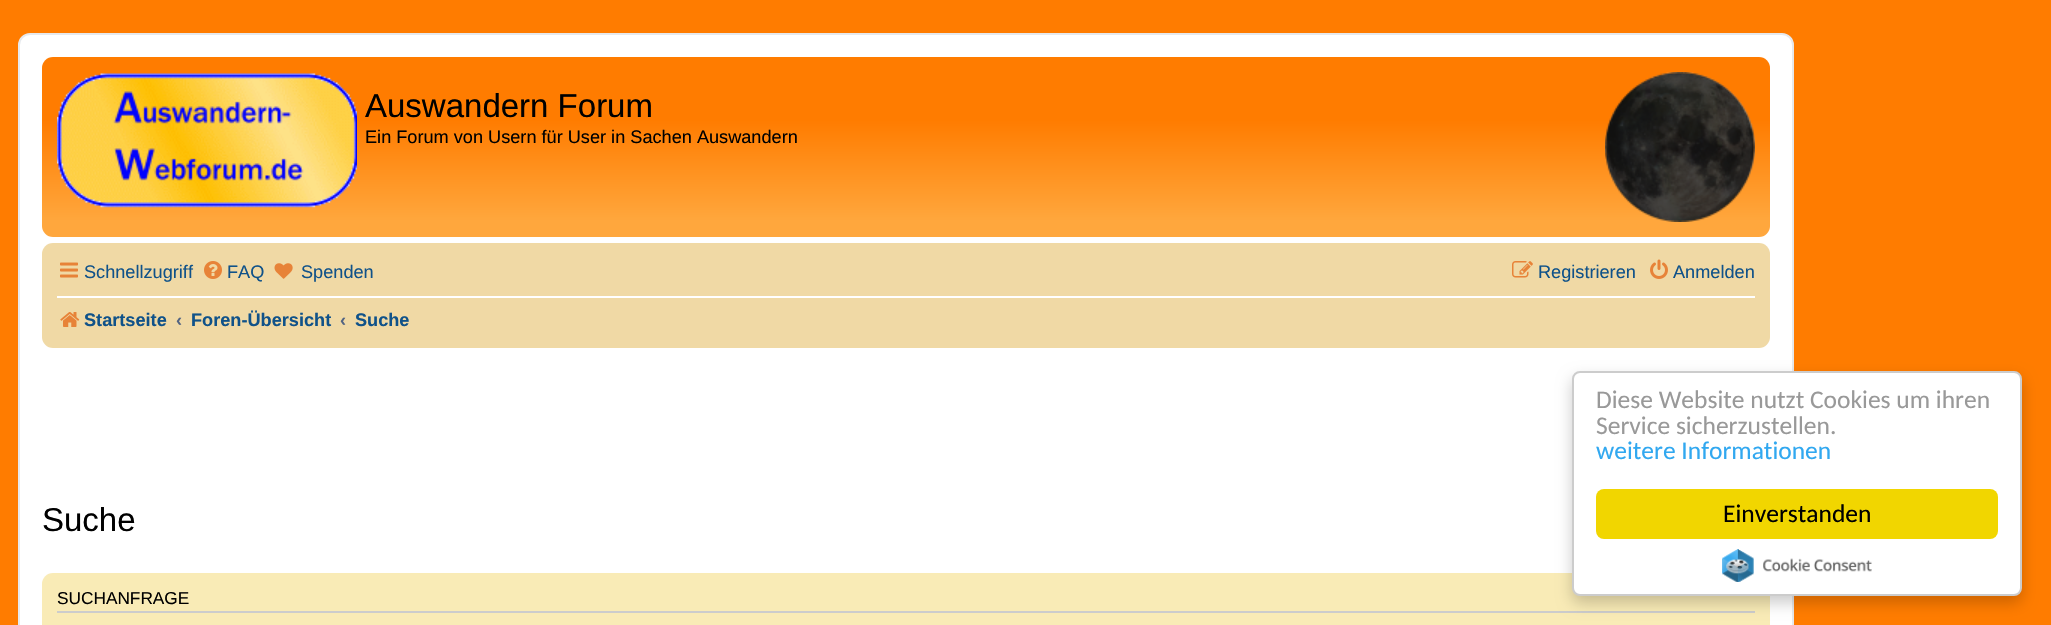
static SkFont makeFont(const char* family, int weight, float size, bool italic = false) {
  SkFontStyle style(weight, SkFontStyle::kNormal_Width,
    italic ? SkFontStyle::kItalic_Slant : SkFontStyle::kUpright_Slant);
  SkFont result(fontMgr->matchFamilyStyle(family, style), size);
  result.setSubpixel(true);
  return result;
}

static void text(SkCanvas* c, const char* s, float x, float y, const SkFont& font, SkColor color) {
  SkPaint ink(SkColor4f::FromColor(color));
  ink.setAntiAlias(true);
  c->drawString(s, x, y, font, ink);
}

static void box(SkCanvas* c, float l, float t, float r, float b, SkColor color) {
  SkPaint ink(SkColor4f::FromColor(color));
  ink.setAntiAlias(true);
  c->drawRect(SkRect::MakeLTRB(l, t, r, b), ink);
}

static void roundBox(SkCanvas* c, float l, float t, float r, float b, float radius, SkColor color) {
  SkPaint ink(SkColor4f::FromColor(color));
  ink.setAntiAlias(true);
  c->drawRoundRect(SkRect::MakeLTRB(l, t, r, b), radius, radius, ink);
}

static void picture(SkCanvas* c, const char* path, float l, float t, float r, float b) {
  auto image = SkImages::DeferredFromEncodedData(SkData::MakeFromFileName(path));
  c->drawImageRect(image, SkRect::MakeLTRB(l, t, r, b), SkSamplingOptions());
}

void draw(SkCanvas* c) {
  SkPaint paint;
  paint.setAntiAlias(true);
  c->clear(0xffffffff);
  {
    const SkColor colors[] = {0xffffb76b, 0xffff7c00, 0xffff7c00, 0xffffa73d, 0xffffa73d, 0xffff7f04, 0xffffa73d};
    const float stops[] = {0, 0, 0.35f, 0.91f, 1, 1, 1};
    const SkPoint ends[] = {{1026, 0}, {1026, 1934}};
    paint.setShader(SkGradientShader::MakeLinear(ends, colors, stops, 7, SkTileMode::kClamp));
    paint.setAlpha(255);
  }
  c->drawRect(SkRect::MakeLTRB(0, 0, 2051, 625), paint);
  paint.setShader(nullptr);
  paint.setColor(0xffffffff);
  c->drawRoundRect(SkRect::MakeLTRB(19, 34, 1793, 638), 11, 11, paint);
  paint.setStyle(SkPaint::kStroke_Style);
  paint.setStrokeWidth(2);
  paint.setColor(0xffe6e9ed);
  c->drawRoundRect(SkRect::MakeLTRB(19, 34, 1793, 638), 11, 11, paint);
  paint.setStyle(SkPaint::kFill_Style);
  {
    const SkColor colors[] = {0xffffb76b, 0xffff7c00, 0xffff7c00, 0xffffa73d, 0xffffa73d, 0xffff7f04, 0xffffa73d};
    const float stops[] = {0, 0, 0.35f, 0.91f, 1, 1, 1};
    const SkPoint ends[] = {{906, 57}, {906, 237}};
    paint.setShader(SkGradientShader::MakeLinear(ends, colors, stops, 7, SkTileMode::kClamp));
    paint.setAlpha(255);
  }
  c->drawRoundRect(SkRect::MakeLTRB(42, 57, 1770, 237), 11, 11, paint);
  picture(c, "img_01.png", 57, 73, 357, 208);
  SkFont face1 = makeFont("Liberation Sans", 400, 33);
  text(c, "Auswandern Forum", 365, 117, face1, 0xff000000);
  SkFont face2 = makeFont("Liberation Sans", 400, 18.15f);
  text(c, "Ein Forum von Usern für User in Sachen Auswandern", 365, 143, face2, 0xff000000);
  picture(c, "img_02.png", 1605, 72, 1755, 222);
  roundBox(c, 42, 243, 1770, 348, 11, 0xfff0d9a5);
  picture(c, "img_03.png", 60, 262, 78, 278);
  text(c, "Schnellzugriff", 84, 278, face2, 0xff105289);
  picture(c, "img_04.png", 204, 261, 222, 279);
  text(c, "FAQ", 227, 278, face2, 0xff105289);
  picture(c, "img_05.png", 274, 263, 293, 279);
  text(c, "Spenden", 301, 278, face2, 0xff105289);
  picture(c, "img_06.png", 1512, 261, 1533, 278);
  text(c, "Registrieren", 1538, 278, face2, 0xff105289);
  picture(c, "img_07.png", 1650, 259, 1668, 279);
  text(c, "Anmelden", 1673, 278, face2, 0xff105289);
  box(c, 57, 296, 1755, 298, 0xffffffff);
  picture(c, "img_08.png", 60, 312, 80, 327);
  SkFont face3 = makeFont("Liberation Sans", 700, 18.15f);
  text(c, "Startseite", 84, 326, face3, 0xff105289);
  text(c, "‹", 176, 326, face3, 0xff536482);
  text(c, "Foren-Übersicht", 191, 326, face3, 0xff105289);
  text(c, "‹", 340, 326, face3, 0xff536482);
  text(c, "Suche", 355, 326, face3, 0xff105289);
  text(c, "Suche", 42, 531, face1, 0xff000000);
  roundBox(c, 42, 573, 1770, 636, 11, 0xfff9ebb6);
  box(c, 57, 611, 1755, 613, 0xffcccccc);
  SkFont face4 = makeFont("Liberation Sans", 400, 17.25f);
  text(c, "SUCHANFRAGE", 57, 604, face4, 0xff000000);
  paint.setShader(nullptr);
  paint.setColor(0x33000000);
  paint.setMaskFilter(SkMaskFilter::MakeBlur(kNormal_SkBlurStyle, 7.5f));
  c->drawRoundRect(SkRect::MakeLTRB(1572, 378, 2022, 603), 8, 8, paint);
  paint.setMaskFilter(nullptr);
  paint.setColor(0xffffffff);
  c->drawRoundRect(SkRect::MakeLTRB(1573, 372, 2021, 595), 7, 7, paint);
  paint.setStyle(SkPaint::kStroke_Style);
  paint.setColor(0xffcccccc);
  c->drawRoundRect(SkRect::MakeLTRB(1573, 372, 2021, 595), 7, 7, paint);
  SkFont face5 = makeFont("Carlito", 400, 25.5f);
  text(c, "Diese Website nutzt Cookies um ihren", 1596, 408, face5, 0xff999999);
  text(c, "Service sicherzustellen.", 1596, 434, face5, 0xff999999);
  text(c, "weitere Informationen", 1596, 459, face5, 0xff31a8f0);
  roundBox(c, 1596, 489, 1998, 539, 8, 0xfff1d600);
  text(c, "Einverstanden", 1723, 522, face5, 0xff000000);
  picture(c, "img_09.png", 1722, 549, 1872, 582);
}
